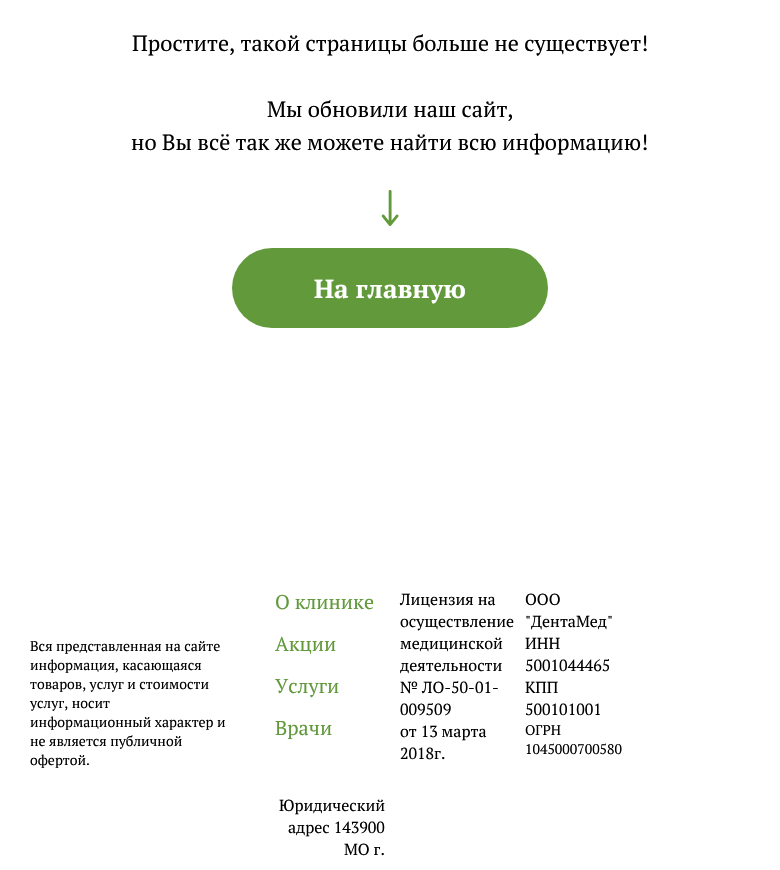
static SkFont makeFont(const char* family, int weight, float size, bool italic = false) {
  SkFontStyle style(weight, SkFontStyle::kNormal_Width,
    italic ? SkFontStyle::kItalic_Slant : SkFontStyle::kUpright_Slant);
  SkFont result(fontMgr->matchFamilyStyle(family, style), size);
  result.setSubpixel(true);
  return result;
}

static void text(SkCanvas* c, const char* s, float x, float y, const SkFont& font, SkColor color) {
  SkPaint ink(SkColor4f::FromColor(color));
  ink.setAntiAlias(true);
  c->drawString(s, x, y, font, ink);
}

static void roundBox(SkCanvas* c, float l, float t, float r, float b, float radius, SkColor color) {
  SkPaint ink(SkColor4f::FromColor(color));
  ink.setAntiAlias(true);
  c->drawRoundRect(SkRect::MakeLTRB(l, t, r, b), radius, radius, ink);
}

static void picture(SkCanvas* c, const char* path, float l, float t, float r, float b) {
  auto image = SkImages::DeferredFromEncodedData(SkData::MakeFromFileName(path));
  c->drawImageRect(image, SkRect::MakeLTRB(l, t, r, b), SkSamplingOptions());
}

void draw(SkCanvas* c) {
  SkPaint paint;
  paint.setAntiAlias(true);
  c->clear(0xffffffff);
  SkFont face1 = makeFont("PT Serif", 400, 22);
  text(c, "Простите, такой страницы больше не существует!", 132, 51, face1, 0xff000000);
  text(c, "Мы обновили наш сайт,", 267, 117, face1, 0xff000000);
  text(c, "но Вы всё так же можете найти всю информацию!", 131, 150, face1, 0xff000000);
  picture(c, "img_01.png", 381, 189, 399, 226);
  roundBox(c, 232, 248, 548, 328, 40, 0xff61993b);
  SkFont face2 = makeFont("PT Serif", 700, 26);
  text(c, "На главную", 314, 298, face2, 0xffffffff);
  SkFont face3 = makeFont("PT Serif", 400, 14);
  text(c, "Вся представленная на сайте", 30, 651, face3, 0xff000000);
  text(c, "информация, касающаяся", 30, 670, face3, 0xff000000);
  text(c, "товаров, услуг и стоимости", 30, 689, face3, 0xff000000);
  text(c, "услуг, носит", 30, 708, face3, 0xff000000);
  text(c, "информационный характер и", 30, 727, face3, 0xff000000);
  text(c, "не является публичной", 30, 746, face3, 0xff000000);
  text(c, "офертой.", 30, 765, face3, 0xff000000);
  SkFont face4 = makeFont("PT Serif", 400, 20);
  text(c, "О клинике", 275, 609, face4, 0xff61993b);
  text(c, "Акции", 275, 651, face4, 0xff61993b);
  text(c, "Услуги", 275, 693, face4, 0xff61993b);
  text(c, "Врачи", 275, 735, face4, 0xff61993b);
  SkFont face5 = makeFont("PT Serif", 400, 16);
  text(c, "Лицензия на", 400, 605, face5, 0xff000000);
  text(c, "осуществление", 400, 627, face5, 0xff000000);
  text(c, "медицинской", 400, 649, face5, 0xff000000);
  text(c, "деятельности", 400, 671, face5, 0xff000000);
  text(c, "№ ЛО-50-01-", 400, 693, face5, 0xff000000);
  text(c, "009509", 400, 715, face5, 0xff000000);
  text(c, "от 13 марта", 400, 737, face5, 0xff000000);
  text(c, "2018г.", 400, 759, face5, 0xff000000);
  text(c, "ООО", 525, 605, face5, 0xff000000);
  text(c, "\"ДентаМед\"", 525, 627, face5, 0xff000000);
  text(c, "ИНН", 525, 649, face5, 0xff000000);
  text(c, "5001044465", 525, 671, face5, 0xff000000);
  text(c, "КПП", 525, 693, face5, 0xff000000);
  text(c, "500101001", 525, 715, face5, 0xff000000);
  text(c, "ОГРН", 525, 735, face3, 0xff000000);
  text(c, "1045000700580", 525, 754, face3, 0xff000000);
  text(c, "Юридический", 279, 811, face5, 0xff000000);
  text(c, "адрес 143900", 288, 833, face5, 0xff000000);
  text(c, "МО г.", 344, 855, face5, 0xff000000);
}
